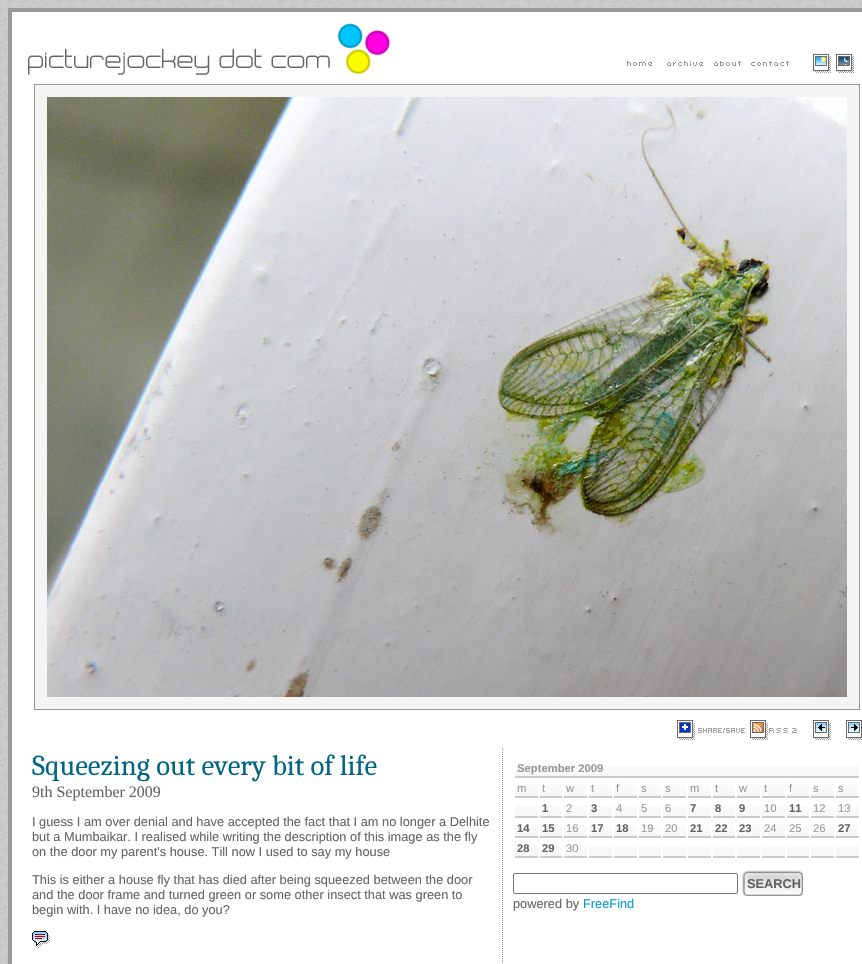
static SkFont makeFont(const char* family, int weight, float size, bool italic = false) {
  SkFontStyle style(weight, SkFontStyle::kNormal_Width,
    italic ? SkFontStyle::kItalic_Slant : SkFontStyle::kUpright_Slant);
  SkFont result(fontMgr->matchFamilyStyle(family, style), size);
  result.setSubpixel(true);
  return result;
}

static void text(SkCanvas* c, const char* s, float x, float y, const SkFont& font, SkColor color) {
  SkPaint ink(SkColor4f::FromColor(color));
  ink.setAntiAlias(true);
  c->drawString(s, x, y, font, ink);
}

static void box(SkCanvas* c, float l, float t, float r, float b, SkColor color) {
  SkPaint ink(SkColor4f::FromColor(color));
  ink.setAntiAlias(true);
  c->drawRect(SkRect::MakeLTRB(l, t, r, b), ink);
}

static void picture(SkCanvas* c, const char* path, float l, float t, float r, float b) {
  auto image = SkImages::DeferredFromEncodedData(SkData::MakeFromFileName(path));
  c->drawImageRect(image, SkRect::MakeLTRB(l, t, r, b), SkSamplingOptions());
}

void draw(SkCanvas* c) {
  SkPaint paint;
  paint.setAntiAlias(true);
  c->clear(0xffffffff);
  picture(c, "img_01.png", 0, 0, 862, 964);
  box(c, 12, 12, 862, 964, 0xffffffff);
  picture(c, "img_02.png", 28, 23, 391, 75);
  paint.setStyle(SkPaint::kStroke_Style);
  paint.setStrokeWidth(4);
  paint.setColor(0xff999999);
  c->drawRect(SkRect::MakeLTRB(10, 10, 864, 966), paint);
  picture(c, "img_03.png", 627, 61, 652, 66);
  picture(c, "img_04.png", 667, 61, 703, 66);
  picture(c, "img_05.png", 714, 61, 741, 66);
  picture(c, "img_06.png", 751, 61, 789, 66);
  picture(c, "img_07.png", 813, 54, 831, 73);
  picture(c, "img_08.png", 836, 54, 854, 73);
  paint.setStyle(SkPaint::kFill_Style);
  paint.setColor(0xfff4f4f4);
  c->drawRect(SkRect::MakeLTRB(34.5f, 84.5f, 859.5f, 709.5f), paint);
  paint.setStyle(SkPaint::kStroke_Style);
  paint.setStrokeWidth(1);
  paint.setColor(0xff999999);
  c->drawRect(SkRect::MakeLTRB(34.5f, 84.5f, 859.5f, 709.5f), paint);
  picture(c, "img_09.png", 47, 97, 847, 697);
  picture(c, "img_10.png", 677, 720, 745, 740);
  picture(c, "img_11.png", 750, 720, 797, 740);
  picture(c, "img_12.png", 813, 720, 831, 740);
  picture(c, "img_13.png", 846, 720, 862, 740);
  paint.setPathEffect(SkDashPathEffect::Make({{1, 1}}, 0));
  c->drawPath(SkPathBuilder().moveTo(502.5f, 748).lineTo(502.5f, 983).detach(), paint);
  paint.setPathEffect(nullptr);
  SkFont face1 = makeFont("Caladea", 400, 28.75f);
  text(c, "Squeezing out every bit of life", 32, 775, face1, 0xff006684);
  SkFont face2 = makeFont("Liberation Serif", 400, 16);
  text(c, "9th September 2009", 32, 797, face2, 0xff646464);
  SkFont face3 = makeFont("Liberation Sans", 400, 12.8f);
  text(c, "I guess I am over denial and have accepted the fact that I am no longer a Delhite", 32, 826, face3, 0xff646464);
  text(c, "but a Mumbaikar. I realised while writing the description of this image as the fly", 32, 841, face3, 0xff646464);
  text(c, "on the door my parent's house. Till now I used to say my house", 32, 856, face3, 0xff646464);
  text(c, "This is either a house fly that has died after being squeezed between the door", 32, 884, face3, 0xff646464);
  text(c, "and the door frame and turned green or some other insect that was green to", 32, 899, face3, 0xff646464);
  text(c, "begin with. I have no idea, do you?", 32, 914, face3, 0xff646464);
  picture(c, "img_14.png", 32, 931, 50, 948);
  picture(c, "img_15.png", 515, 765, 859, 776);
  box(c, 515, 776, 859, 778, 0xffcbcbcb);
  SkFont face4 = makeFont("Liberation Sans", 700, 11.25f);
  text(c, "September 2009", 517, 772, face4, 0xff999999);
  picture(c, "img_16.png", 515, 785, 538, 796);
  box(c, 515, 796, 538, 798, 0xffcbcbcb);
  SkFont face5 = makeFont("Liberation Sans", 400, 11.25f);
  text(c, "m", 517, 792, face5, 0xff999999);
  picture(c, "img_17.png", 540, 785, 562, 796);
  box(c, 540, 796, 562, 798, 0xffcbcbcb);
  text(c, "t", 542, 792, face5, 0xff999999);
  picture(c, "img_16.png", 564, 785, 587, 796);
  box(c, 564, 796, 587, 798, 0xffcbcbcb);
  text(c, "w", 566, 792, face5, 0xff999999);
  picture(c, "img_16.png", 589, 785, 612, 796);
  box(c, 589, 796, 612, 798, 0xffcbcbcb);
  text(c, "t", 591, 792, face5, 0xff999999);
  picture(c, "img_16.png", 614, 785, 637, 796);
  box(c, 614, 796, 637, 798, 0xffcbcbcb);
  text(c, "f", 616, 792, face5, 0xff999999);
  picture(c, "img_17.png", 639, 785, 661, 796);
  box(c, 639, 796, 661, 798, 0xffcbcbcb);
  text(c, "s", 641, 792, face5, 0xff999999);
  picture(c, "img_16.png", 663, 785, 686, 796);
  box(c, 663, 796, 686, 798, 0xffcbcbcb);
  text(c, "s", 665, 792, face5, 0xff999999);
  picture(c, "img_16.png", 688, 785, 711, 796);
  box(c, 688, 796, 711, 798, 0xffcbcbcb);
  text(c, "m", 690, 792, face5, 0xff999999);
  picture(c, "img_17.png", 713, 785, 735, 796);
  box(c, 713, 796, 735, 798, 0xffcbcbcb);
  text(c, "t", 715, 792, face5, 0xff999999);
  picture(c, "img_16.png", 737, 785, 760, 796);
  box(c, 737, 796, 760, 798, 0xffcbcbcb);
  text(c, "w", 739, 792, face5, 0xff999999);
  picture(c, "img_16.png", 762, 785, 785, 796);
  box(c, 762, 796, 785, 798, 0xffcbcbcb);
  text(c, "t", 764, 792, face5, 0xff999999);
  picture(c, "img_17.png", 787, 785, 809, 796);
  box(c, 787, 796, 809, 798, 0xffcbcbcb);
  text(c, "f", 789, 792, face5, 0xff999999);
  picture(c, "img_16.png", 811, 785, 834, 796);
  box(c, 811, 796, 834, 798, 0xffcbcbcb);
  text(c, "s", 813, 792, face5, 0xff999999);
  picture(c, "img_16.png", 836, 785, 859, 796);
  box(c, 836, 796, 859, 798, 0xffcbcbcb);
  text(c, "s", 838, 792, face5, 0xff999999);
  picture(c, "img_16.png", 515, 805, 538, 816);
  box(c, 515, 816, 538, 818, 0xffcbcbcb);
  picture(c, "img_17.png", 540, 805, 562, 816);
  box(c, 540, 816, 562, 818, 0xffcbcbcb);
  text(c, "1", 542, 812, face4, 0xff646464);
  picture(c, "img_16.png", 564, 805, 587, 816);
  box(c, 564, 816, 587, 818, 0xffcbcbcb);
  text(c, "2", 566, 812, face5, 0xff999999);
  picture(c, "img_16.png", 589, 805, 612, 816);
  box(c, 589, 816, 612, 818, 0xffcbcbcb);
  text(c, "3", 591, 812, face4, 0xff646464);
  picture(c, "img_16.png", 614, 805, 637, 816);
  box(c, 614, 816, 637, 818, 0xffcbcbcb);
  text(c, "4", 616, 812, face5, 0xff999999);
  picture(c, "img_17.png", 639, 805, 661, 816);
  box(c, 639, 816, 661, 818, 0xffcbcbcb);
  text(c, "5", 641, 812, face5, 0xff999999);
  picture(c, "img_16.png", 663, 805, 686, 816);
  box(c, 663, 816, 686, 818, 0xffcbcbcb);
  text(c, "6", 665, 812, face5, 0xff999999);
  picture(c, "img_16.png", 688, 805, 711, 816);
  box(c, 688, 816, 711, 818, 0xffcbcbcb);
  text(c, "7", 690, 812, face4, 0xff646464);
  picture(c, "img_17.png", 713, 805, 735, 816);
  box(c, 713, 816, 735, 818, 0xffcbcbcb);
  text(c, "8", 715, 812, face4, 0xff646464);
  picture(c, "img_16.png", 737, 805, 760, 816);
  box(c, 737, 816, 760, 818, 0xffcbcbcb);
  text(c, "9", 739, 812, face4, 0xff646464);
  picture(c, "img_16.png", 762, 805, 785, 816);
  box(c, 762, 816, 785, 818, 0xffcbcbcb);
  text(c, "10", 764, 812, face5, 0xff999999);
  picture(c, "img_17.png", 787, 805, 809, 816);
  box(c, 787, 816, 809, 818, 0xffcbcbcb);
  text(c, "11", 789, 812, face4, 0xff646464);
  picture(c, "img_16.png", 811, 805, 834, 816);
  box(c, 811, 816, 834, 818, 0xffcbcbcb);
  text(c, "12", 813, 812, face5, 0xff999999);
  picture(c, "img_16.png", 836, 805, 859, 816);
  box(c, 836, 816, 859, 818, 0xffcbcbcb);
  text(c, "13", 838, 812, face5, 0xff999999);
  picture(c, "img_16.png", 515, 825, 538, 836);
  box(c, 515, 836, 538, 838, 0xffcbcbcb);
  text(c, "14", 517, 832, face4, 0xff646464);
  picture(c, "img_17.png", 540, 825, 562, 836);
  box(c, 540, 836, 562, 838, 0xffcbcbcb);
  text(c, "15", 542, 832, face4, 0xff646464);
  picture(c, "img_16.png", 564, 825, 587, 836);
  box(c, 564, 836, 587, 838, 0xffcbcbcb);
  text(c, "16", 566, 832, face5, 0xff999999);
  picture(c, "img_16.png", 589, 825, 612, 836);
  box(c, 589, 836, 612, 838, 0xffcbcbcb);
  text(c, "17", 591, 832, face4, 0xff646464);
  picture(c, "img_16.png", 614, 825, 637, 836);
  box(c, 614, 836, 637, 838, 0xffcbcbcb);
  text(c, "18", 616, 832, face4, 0xff646464);
  picture(c, "img_17.png", 639, 825, 661, 836);
  box(c, 639, 836, 661, 838, 0xffcbcbcb);
  text(c, "19", 641, 832, face5, 0xff999999);
  picture(c, "img_16.png", 663, 825, 686, 836);
  box(c, 663, 836, 686, 838, 0xffcbcbcb);
  text(c, "20", 665, 832, face5, 0xff999999);
  picture(c, "img_16.png", 688, 825, 711, 836);
  box(c, 688, 836, 711, 838, 0xffcbcbcb);
  text(c, "21", 690, 832, face4, 0xff646464);
  picture(c, "img_17.png", 713, 825, 735, 836);
  box(c, 713, 836, 735, 838, 0xffcbcbcb);
  text(c, "22", 715, 832, face4, 0xff646464);
  picture(c, "img_16.png", 737, 825, 760, 836);
  box(c, 737, 836, 760, 838, 0xffcbcbcb);
  text(c, "23", 739, 832, face4, 0xff646464);
  picture(c, "img_16.png", 762, 825, 785, 836);
  box(c, 762, 836, 785, 838, 0xffcbcbcb);
  text(c, "24", 764, 832, face5, 0xff999999);
  picture(c, "img_17.png", 787, 825, 809, 836);
  box(c, 787, 836, 809, 838, 0xffcbcbcb);
  text(c, "25", 789, 832, face5, 0xff999999);
  picture(c, "img_16.png", 811, 825, 834, 836);
  box(c, 811, 836, 834, 838, 0xffcbcbcb);
  text(c, "26", 813, 832, face5, 0xff999999);
  picture(c, "img_16.png", 836, 825, 859, 836);
  box(c, 836, 836, 859, 838, 0xffcbcbcb);
  text(c, "27", 838, 832, face4, 0xff646464);
  picture(c, "img_16.png", 515, 845, 538, 856);
  box(c, 515, 856, 538, 858, 0xffcbcbcb);
  text(c, "28", 517, 852, face4, 0xff646464);
  picture(c, "img_17.png", 540, 845, 562, 856);
  box(c, 540, 856, 562, 858, 0xffcbcbcb);
  text(c, "29", 542, 852, face4, 0xff646464);
  picture(c, "img_16.png", 564, 845, 587, 856);
  box(c, 564, 856, 587, 858, 0xffcbcbcb);
  text(c, "30", 566, 852, face5, 0xff999999);
  picture(c, "img_16.png", 589, 845, 612, 856);
  box(c, 589, 856, 612, 858, 0xffcbcbcb);
  picture(c, "img_16.png", 614, 845, 637, 856);
  box(c, 614, 856, 637, 858, 0xffcbcbcb);
  picture(c, "img_17.png", 639, 845, 661, 856);
  box(c, 639, 856, 661, 858, 0xffcbcbcb);
  picture(c, "img_16.png", 663, 845, 686, 856);
  box(c, 663, 856, 686, 858, 0xffcbcbcb);
  picture(c, "img_16.png", 688, 845, 711, 856);
  box(c, 688, 856, 711, 858, 0xffcbcbcb);
  picture(c, "img_17.png", 713, 845, 735, 856);
  box(c, 713, 856, 735, 858, 0xffcbcbcb);
  picture(c, "img_16.png", 737, 845, 760, 856);
  box(c, 737, 856, 760, 858, 0xffcbcbcb);
  picture(c, "img_16.png", 762, 845, 785, 856);
  box(c, 762, 856, 785, 858, 0xffcbcbcb);
  picture(c, "img_17.png", 787, 845, 809, 856);
  box(c, 787, 856, 809, 858, 0xffcbcbcb);
  picture(c, "img_16.png", 811, 845, 834, 856);
  box(c, 811, 856, 834, 858, 0xffcbcbcb);
  picture(c, "img_16.png", 836, 845, 859, 856);
  box(c, 836, 856, 859, 858, 0xffcbcbcb);
  paint.setColor(0xff767676);
  c->drawRoundRect(SkRect::MakeLTRB(513.5f, 873.5f, 737.5f, 893.5f), 1.5f, 1.5f, paint);
  picture(c, "img_18.png", 742, 870, 803, 896);
  SkFont face6 = makeFont("Liberation Sans", 700, 12.8f);
  text(c, "SEARCH", 747, 888, face6, 0xff646464);
  text(c, "powered by", 513, 908, face3, 0xff646464);
  text(c, "FreeFind", 583, 908, face3, 0xff009fcd);
}
